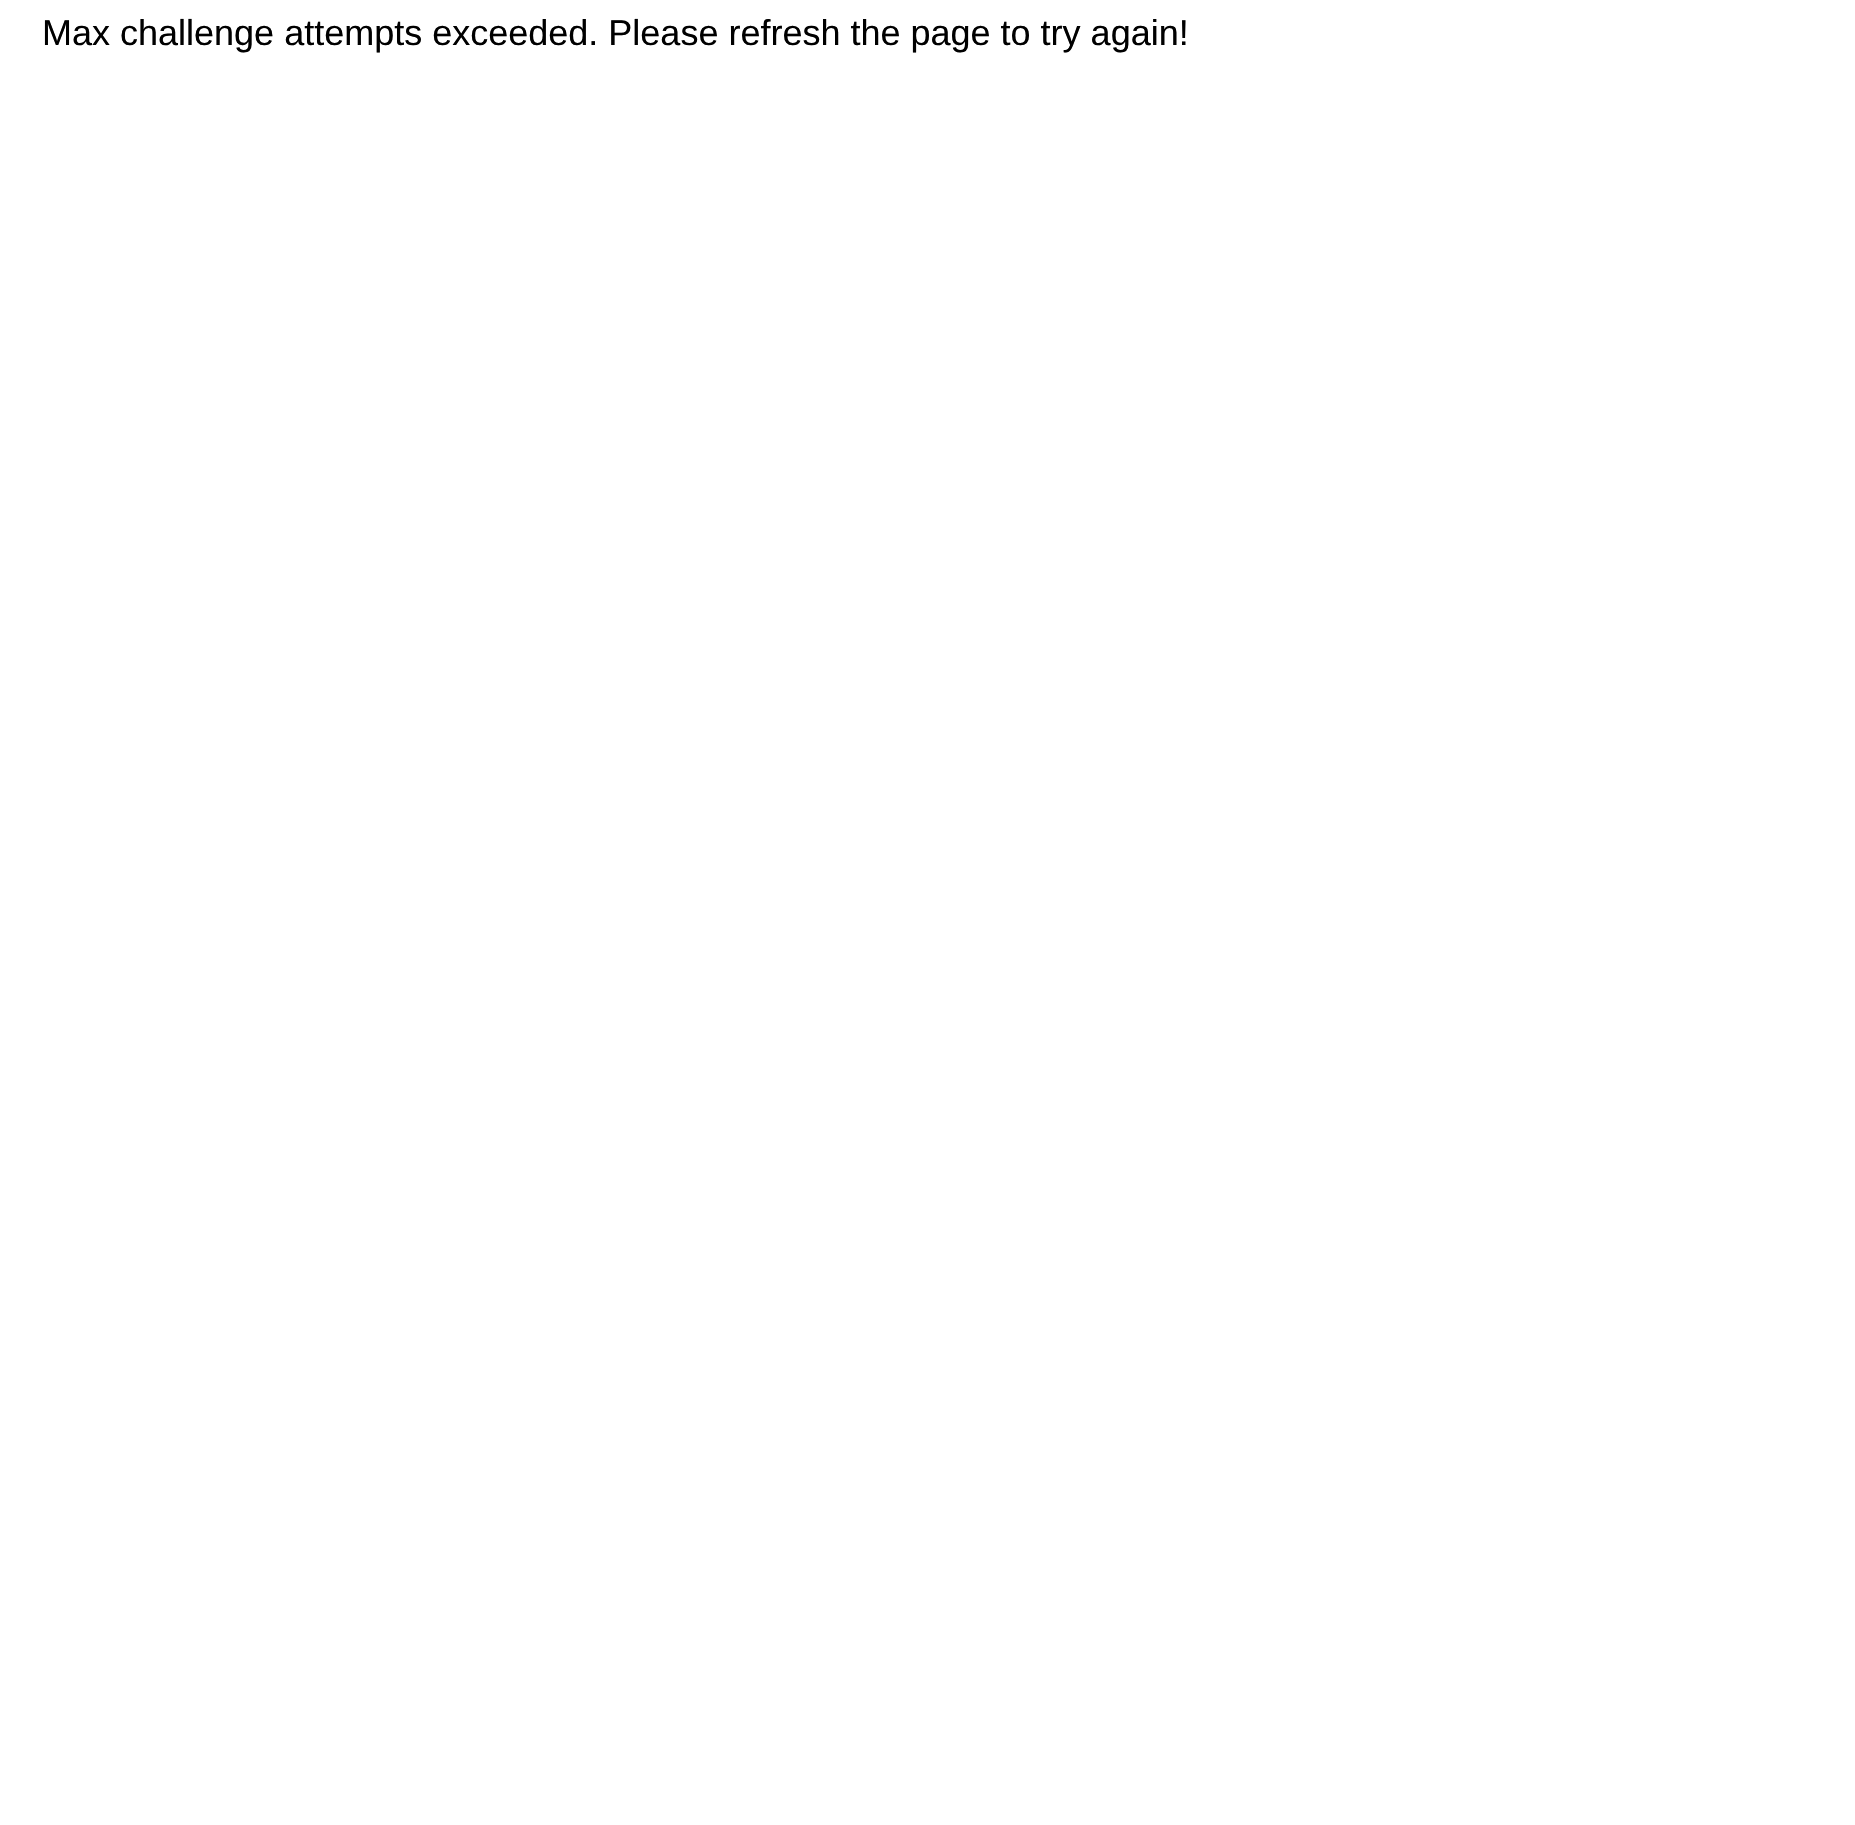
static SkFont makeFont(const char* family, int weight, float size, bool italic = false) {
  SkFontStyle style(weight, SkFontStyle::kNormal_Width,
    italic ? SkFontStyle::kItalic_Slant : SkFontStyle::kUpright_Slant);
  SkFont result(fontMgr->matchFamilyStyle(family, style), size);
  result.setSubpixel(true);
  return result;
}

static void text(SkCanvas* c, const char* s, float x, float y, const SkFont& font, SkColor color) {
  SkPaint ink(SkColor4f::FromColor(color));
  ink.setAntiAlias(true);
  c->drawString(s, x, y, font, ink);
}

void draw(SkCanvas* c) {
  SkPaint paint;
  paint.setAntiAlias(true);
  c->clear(0xffffffff);
  SkFont face1 = makeFont("Liberation Sans", 400, 36);
  text(c, "Max challenge attempts exceeded. Please refresh the page to try again!", 42, 45, face1, 0xff000000);
}
